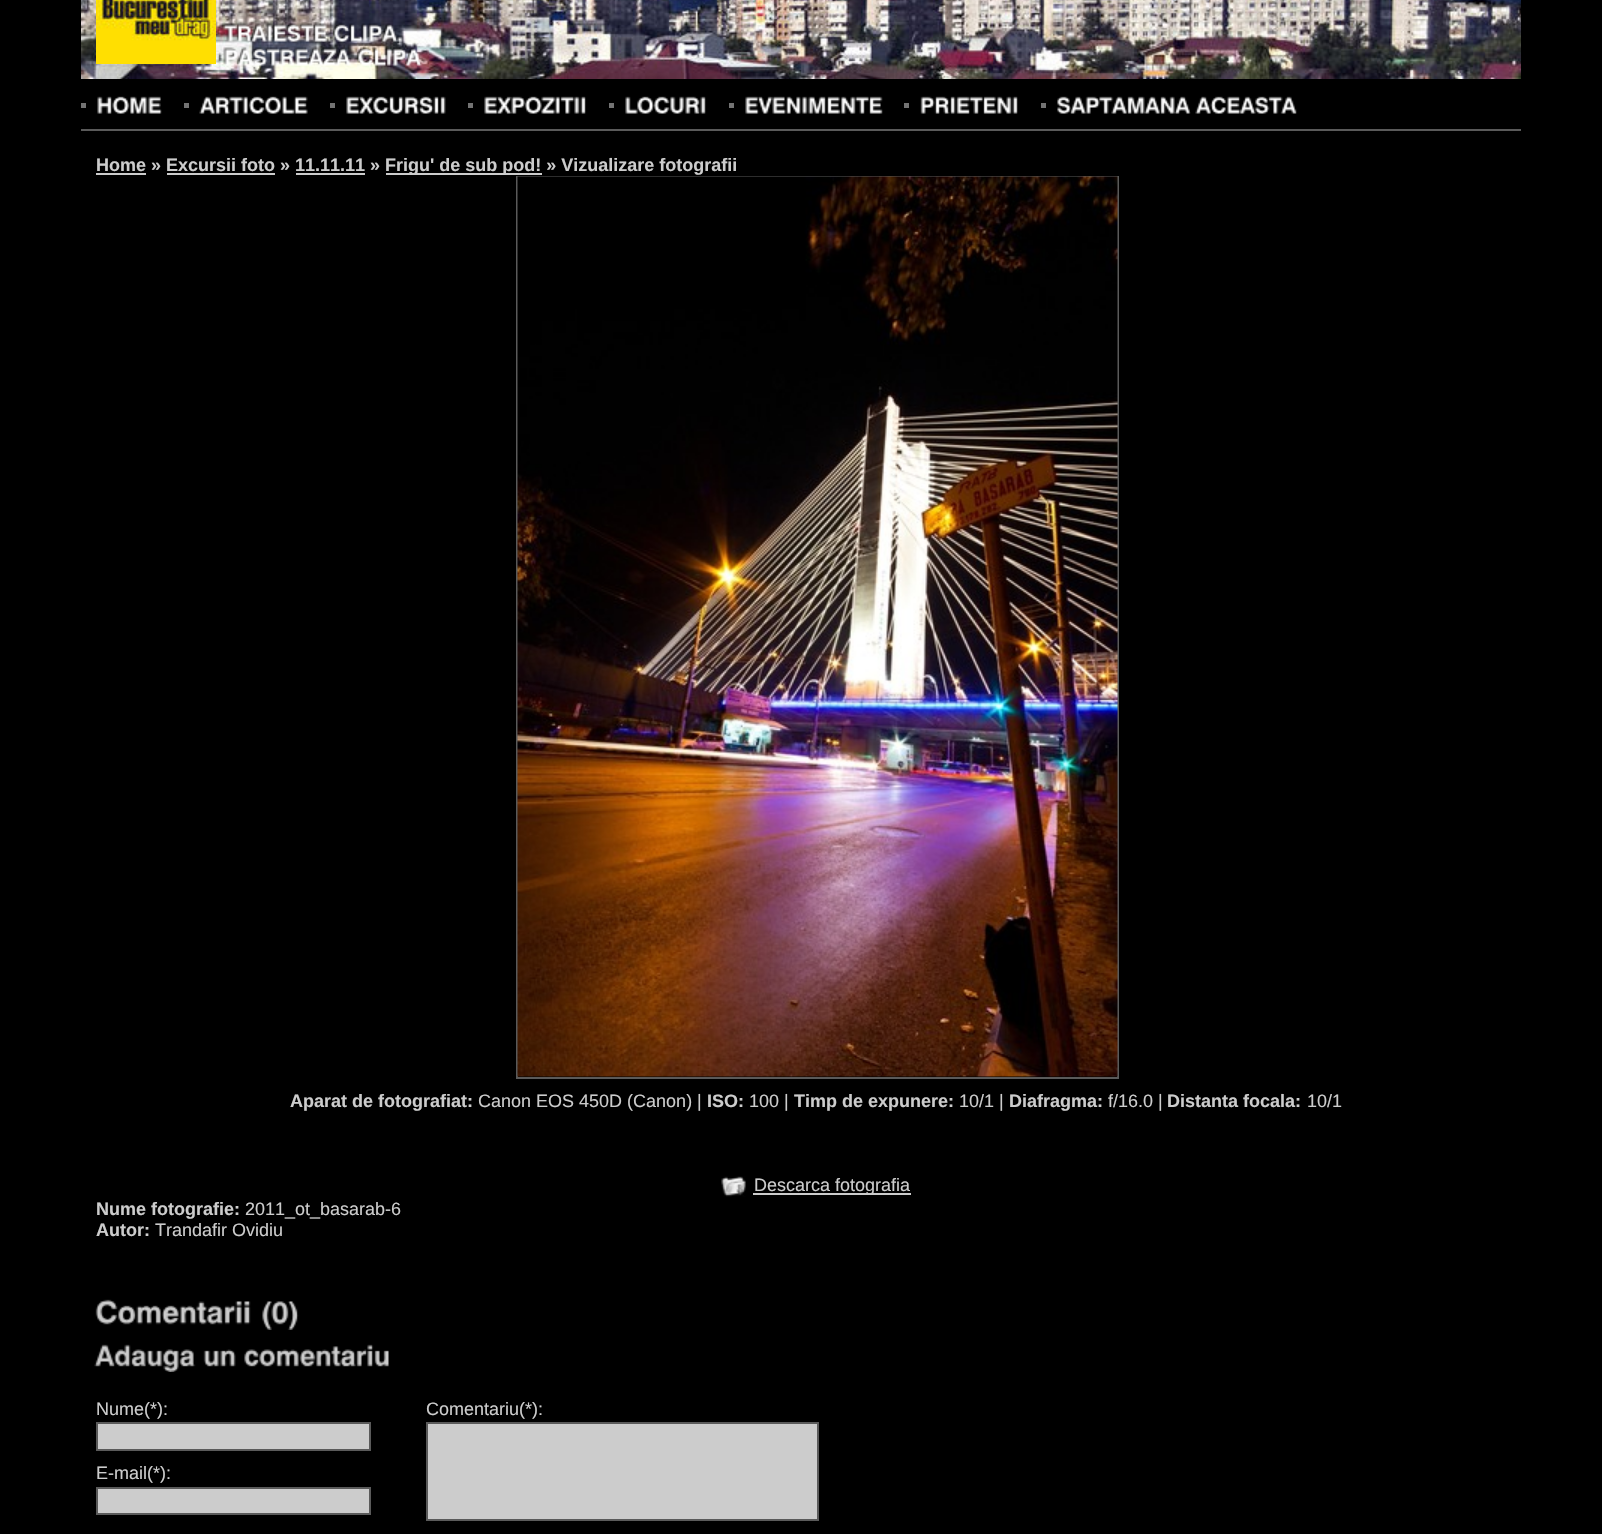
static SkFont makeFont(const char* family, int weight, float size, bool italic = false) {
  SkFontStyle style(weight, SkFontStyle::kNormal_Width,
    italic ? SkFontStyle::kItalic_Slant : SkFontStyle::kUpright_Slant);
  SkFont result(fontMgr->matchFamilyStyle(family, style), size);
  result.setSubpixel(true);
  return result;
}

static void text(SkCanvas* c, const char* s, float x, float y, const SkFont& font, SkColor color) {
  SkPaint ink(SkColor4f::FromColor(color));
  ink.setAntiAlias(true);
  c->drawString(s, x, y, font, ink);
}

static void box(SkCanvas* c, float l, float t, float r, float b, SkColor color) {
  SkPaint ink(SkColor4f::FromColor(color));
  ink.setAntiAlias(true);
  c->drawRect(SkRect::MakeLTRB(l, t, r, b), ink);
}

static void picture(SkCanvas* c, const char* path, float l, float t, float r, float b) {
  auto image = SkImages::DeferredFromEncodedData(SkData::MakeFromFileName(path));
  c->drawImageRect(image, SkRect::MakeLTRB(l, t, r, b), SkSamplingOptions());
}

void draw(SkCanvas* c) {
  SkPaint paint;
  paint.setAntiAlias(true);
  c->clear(0xff000000);
  picture(c, "img_01.png", 81, 0, 1521, 79);
  picture(c, "img_02.png", 96, 0, 216, 64);
  picture(c, "img_03.png", 222, 23, 328, 42);
  picture(c, "img_04.png", 332, 23, 403, 45);
  picture(c, "img_05.png", 223, 47, 351, 66);
  picture(c, "img_06.png", 356, 47, 422, 66);
  box(c, 81, 129, 1521, 131, 0xff5a5a5a);
  box(c, 81, 103, 86, 108, 0xff737373);
  picture(c, "img_07.png", 97, 96, 162, 114);
  box(c, 184, 103, 189, 108, 0xff737373);
  picture(c, "img_08.png", 199, 96, 308, 114);
  box(c, 330, 103, 335, 108, 0xff737373);
  picture(c, "img_09.png", 346, 96, 446, 114);
  box(c, 468, 103, 473, 108, 0xff737373);
  picture(c, "img_10.png", 484, 96, 586, 114);
  box(c, 609, 103, 614, 108, 0xff737373);
  picture(c, "img_11.png", 625, 96, 706, 114);
  box(c, 729, 103, 734, 108, 0xff737373);
  picture(c, "img_12.png", 745, 96, 883, 114);
  box(c, 904, 103, 909, 108, 0xff737373);
  picture(c, "img_13.png", 920, 96, 1018, 114);
  box(c, 1041, 103, 1046, 108, 0xff737373);
  picture(c, "img_14.png", 1057, 96, 1191, 114);
  picture(c, "img_15.png", 1195, 96, 1297, 114);
  SkFont face1 = makeFont("Liberation Sans", 700, 18);
  text(c, "Home » Excursii foto » 11.11.11 »", 96, 171, face1, 0xffcccccc);
  box(c, 96, 173, 146, 175, 0xffcccccc);
  box(c, 386, 173, 542, 175, 0xffcccccc);
  text(c, "Frigu' de sub pod! » Vizualizare fotografii", 385, 171, face1, 0xffcccccc);
  box(c, 167, 173, 275, 175, 0xffcccccc);
  box(c, 296, 173, 365, 175, 0xffcccccc);
  paint.setStyle(SkPaint::kStroke_Style);
  paint.setStrokeWidth(2);
  paint.setColor(0xff5a5a5a);
  c->drawRect(SkRect::MakeLTRB(517, 177, 1118, 1078), paint);
  picture(c, "img_16.png", 517, 176, 1118, 1077);
  text(c, "Aparat de fotografiat:", 290, 1107, face1, 0xffcccccc);
  SkFont face2 = makeFont("Liberation Sans", 400, 18);
  text(c, "Canon EOS 450D (Canon) |", 478, 1107, face2, 0xffcccccc);
  text(c, "ISO:", 707, 1107, face1, 0xffcccccc);
  text(c, "100 |", 749, 1107, face2, 0xffcccccc);
  text(c, "Timp de expunere:", 794, 1107, face1, 0xffcccccc);
  text(c, "10/1 |", 959, 1107, face2, 0xffcccccc);
  text(c, "Diafragma:", 1009, 1107, face1, 0xffcccccc);
  text(c, "f/16.0 |", 1108, 1107, face2, 0xffcccccc);
  text(c, "Distanta focala:", 1167, 1107, face1, 0xffcccccc);
  text(c, "10/1", 1307, 1107, face2, 0xffcccccc);
  picture(c, "img_17.png", 721, 1176, 746, 1197);
  box(c, 753, 1193, 911, 1195, 0xffcccccc);
  text(c, "Descarca fotografia", 754, 1191, face2, 0xffcccccc);
  text(c, "Nume fotografie:", 96, 1215, face1, 0xffcccccc);
  text(c, "2011_ot_basarab-6", 245, 1215, face2, 0xffcccccc);
  text(c, "Autor:", 96, 1236, face1, 0xffcccccc);
  text(c, "Trandafir Ovidiu", 155, 1236, face2, 0xffcccccc);
  picture(c, "img_18.png", 95, 1299, 251, 1325);
  picture(c, "img_19.png", 262, 1301, 299, 1330);
  picture(c, "img_20.png", 94, 1344, 196, 1372);
  picture(c, "img_21.png", 203, 1349, 236, 1367);
  picture(c, "img_22.png", 244, 1344, 389, 1367);
  text(c, "Nume(*):", 96, 1415, face2, 0xffcccccc);
  paint.setStyle(SkPaint::kFill_Style);
  paint.setColor(0xffcccccc);
  c->drawRect(SkRect::MakeLTRB(97, 1423, 370, 1450), paint);
  paint.setStyle(SkPaint::kStroke_Style);
  paint.setColor(0xff5a5a5a);
  c->drawRect(SkRect::MakeLTRB(97, 1423, 370, 1450), paint);
  text(c, "E-mail(*):", 96, 1479, face2, 0xffcccccc);
  paint.setStyle(SkPaint::kFill_Style);
  paint.setColor(0xffcccccc);
  c->drawRect(SkRect::MakeLTRB(97, 1488, 370, 1514), paint);
  paint.setStyle(SkPaint::kStroke_Style);
  paint.setColor(0xff5a5a5a);
  c->drawRect(SkRect::MakeLTRB(97, 1488, 370, 1514), paint);
  text(c, "Comentariu(*):", 426, 1415, face2, 0xffcccccc);
  paint.setStyle(SkPaint::kFill_Style);
  paint.setColor(0xffcccccc);
  c->drawRect(SkRect::MakeLTRB(427, 1423, 818, 1520), paint);
  paint.setStyle(SkPaint::kStroke_Style);
  paint.setColor(0xff5a5a5a);
  c->drawRect(SkRect::MakeLTRB(427, 1423, 818, 1520), paint);
}
